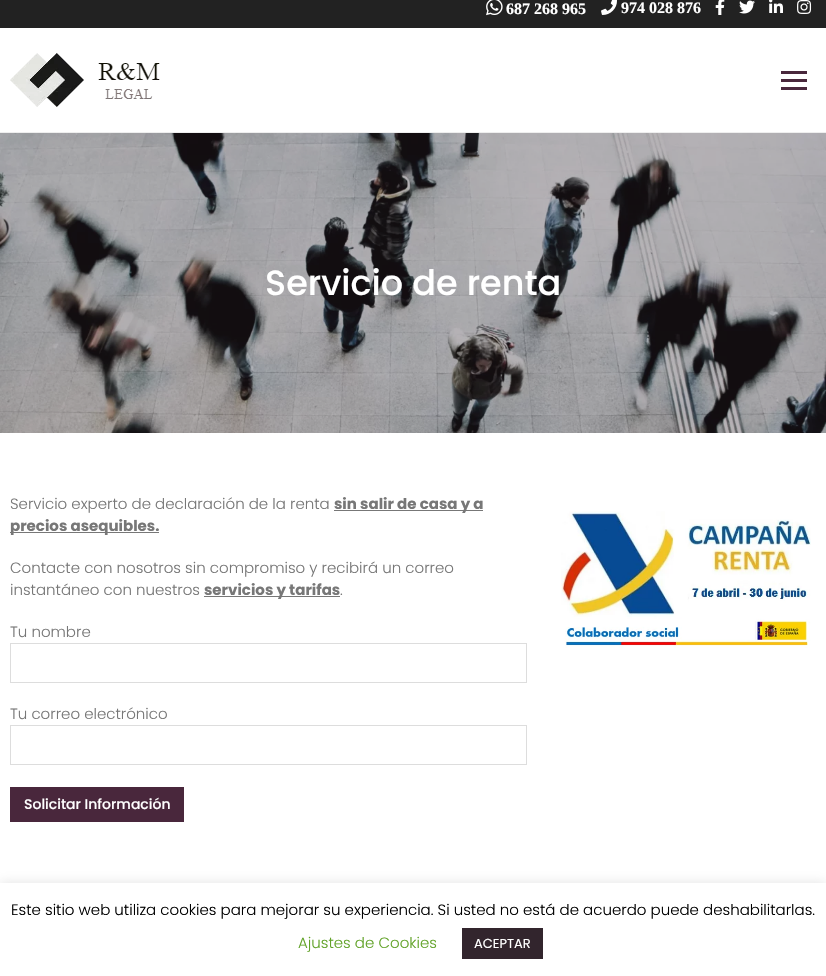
static SkFont makeFont(const char* family, int weight, float size, bool italic = false) {
  SkFontStyle style(weight, SkFontStyle::kNormal_Width,
    italic ? SkFontStyle::kItalic_Slant : SkFontStyle::kUpright_Slant);
  SkFont result(fontMgr->matchFamilyStyle(family, style), size);
  result.setSubpixel(true);
  return result;
}

static void text(SkCanvas* c, const char* s, float x, float y, const SkFont& font, SkColor color) {
  SkPaint ink(SkColor4f::FromColor(color));
  ink.setAntiAlias(true);
  c->drawString(s, x, y, font, ink);
}

static void box(SkCanvas* c, float l, float t, float r, float b, SkColor color) {
  SkPaint ink(SkColor4f::FromColor(color));
  ink.setAntiAlias(true);
  c->drawRect(SkRect::MakeLTRB(l, t, r, b), ink);
}

static void picture(SkCanvas* c, const char* path, float l, float t, float r, float b) {
  auto image = SkImages::DeferredFromEncodedData(SkData::MakeFromFileName(path));
  c->drawImageRect(image, SkRect::MakeLTRB(l, t, r, b), SkSamplingOptions());
}

void draw(SkCanvas* c) {
  SkPaint paint;
  paint.setAntiAlias(true);
  c->clear(0xffffffff);
  box(c, 0, 0, 826, 28, 0xff222222);
  picture(c, "img_01.png", 486, 0, 503, 16);
  SkFont face1 = makeFont("Liberation Serif", 700, 16);
  text(c, "687 268 965", 506, 14, face1, 0xffffffff);
  picture(c, "img_02.png", 601, 0, 617, 15);
  text(c, "974 028 876", 621, 13, face1, 0xffffffff);
  picture(c, "img_03.png", 715, 0, 725, 15);
  picture(c, "img_04.png", 739, 0, 755, 14);
  picture(c, "img_05.png", 769, 0, 783, 13);
  picture(c, "img_06.png", 797, 0, 812, 14);
  picture(c, "img_07.png", 10, 53, 160, 107);
  box(c, 781, 71, 807, 74, 0xff49273c);
  box(c, 781, 87, 807, 90, 0xff49273c);
  box(c, 781, 79, 807, 82, 0xff49273c);
  box(c, 0, 132, 826, 133, 0xffeeeeee);
  picture(c, "img_08.png", 0, 133, 826, 433);
  SkFont face2 = makeFont("Poppins", 500, 35);
  text(c, "Servicio de renta", 265, 295, face2, 0xffffffff);
  SkFont face3 = makeFont("Poppins", 300, 15);
  text(c, "Servicio experto de declaración de la renta", 10, 509, face3, 0xff777777);
  box(c, 334, 510, 483, 511, 0xff777777);
  SkFont face4 = makeFont("Poppins", 700, 15);
  text(c, "sin salir de casa y a", 334, 509, face4, 0xff777777);
  box(c, 10, 532, 159, 533, 0xff777777);
  text(c, "precios asequibles.", 10, 531, face4, 0xff777777);
  text(c, "Contacte con nosotros sin compromiso y recibirá un correo", 10, 573, face3, 0xff777777);
  text(c, "instantáneo con nuestros", 10, 595, face3, 0xff777777);
  box(c, 204, 596, 340, 597, 0xff777777);
  text(c, "servicios y tarifas", 204, 595, face4, 0xff777777);
  text(c, ".", 340, 595, face3, 0xff777777);
  text(c, "Tu nombre", 10, 637, face3, 0xff777777);
  paint.setStyle(SkPaint::kStroke_Style);
  paint.setStrokeWidth(1);
  paint.setColor(0xffdddddd);
  c->drawRect(SkRect::MakeLTRB(10.5f, 643.5f, 526.5f, 682.5f), paint);
  text(c, "Tu correo electrónico", 10, 719, face3, 0xff777777);
  c->drawRect(SkRect::MakeLTRB(10.5f, 725.5f, 526.5f, 764.5f), paint);
  box(c, 10, 787, 184, 822, 0xff49273c);
  SkFont face5 = makeFont("Poppins", 500, 14);
  text(c, "Solicitar Información", 24, 809, face5, 0xffffffff);
  picture(c, "img_09.png", 561, 511, 811, 648);
  paint.setStyle(SkPaint::kFill_Style);
  paint.setColor(0x4dacabab);
  paint.setMaskFilter(SkMaskFilter::MakeBlur(kNormal_SkBlurStyle, 5));
  c->drawRect(SkRect::MakeLTRB(0, 882, 826, 975), paint);
  paint.setMaskFilter(nullptr);
  box(c, 0, 883, 826, 976, 0xffffffff);
  text(c, "Este sitio web utiliza cookies para mejorar su experiencia. Si usted no está de acuerdo puede deshabilitarlas.", 11, 915, face3, 0xff000000);
  text(c, "Ajustes de Cookies", 298, 948, face3, 0xff62a329);
  box(c, 462, 928, 543, 959, 0xff32252d);
  SkFont face6 = makeFont("Poppins", 400, 13);
  text(c, "ACEPTAR", 474, 948, face6, 0xffffffff);
}
